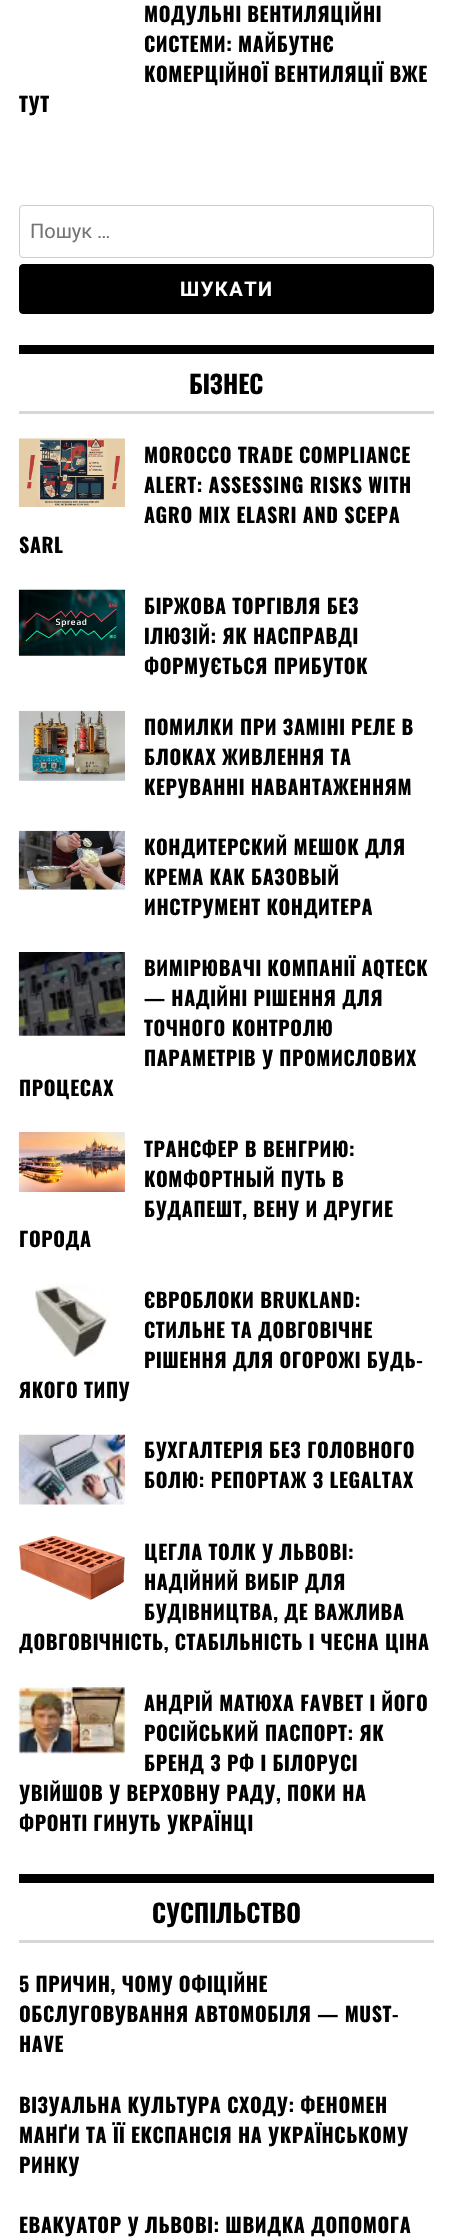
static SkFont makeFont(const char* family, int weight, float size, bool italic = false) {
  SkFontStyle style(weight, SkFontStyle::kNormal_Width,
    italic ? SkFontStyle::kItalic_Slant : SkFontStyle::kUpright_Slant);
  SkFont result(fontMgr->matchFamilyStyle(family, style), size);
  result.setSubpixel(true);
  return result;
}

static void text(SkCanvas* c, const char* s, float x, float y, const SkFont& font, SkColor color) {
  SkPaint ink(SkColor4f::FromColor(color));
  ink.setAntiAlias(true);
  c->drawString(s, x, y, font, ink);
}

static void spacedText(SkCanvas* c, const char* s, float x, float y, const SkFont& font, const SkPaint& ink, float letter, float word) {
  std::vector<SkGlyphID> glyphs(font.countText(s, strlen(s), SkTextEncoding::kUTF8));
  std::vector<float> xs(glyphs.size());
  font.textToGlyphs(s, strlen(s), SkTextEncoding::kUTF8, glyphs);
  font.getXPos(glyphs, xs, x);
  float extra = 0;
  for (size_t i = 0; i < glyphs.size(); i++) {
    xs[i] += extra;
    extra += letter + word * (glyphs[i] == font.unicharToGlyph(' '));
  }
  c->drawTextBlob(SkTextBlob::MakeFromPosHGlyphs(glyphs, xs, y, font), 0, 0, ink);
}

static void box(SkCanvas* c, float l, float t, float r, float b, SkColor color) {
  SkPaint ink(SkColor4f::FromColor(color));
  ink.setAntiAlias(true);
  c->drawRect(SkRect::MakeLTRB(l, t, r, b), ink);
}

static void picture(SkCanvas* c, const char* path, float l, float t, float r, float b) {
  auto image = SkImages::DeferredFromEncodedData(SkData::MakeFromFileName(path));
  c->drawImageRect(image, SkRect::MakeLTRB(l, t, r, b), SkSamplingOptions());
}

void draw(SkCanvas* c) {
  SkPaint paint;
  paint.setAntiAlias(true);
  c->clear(0xffffffff);
  SkFont face1 = makeFont("Oswald", 700, 20);
  paint.setColor(0xff000000);
  spacedText(c, "МОДУЛЬНІ ВЕНТИЛЯЦІЙНІ", 144, 22, face1, paint, 0.6f, 0);
  spacedText(c, "СИСТЕМИ: МАЙБУТНЄ", 144, 52, face1, paint, 0.6f, 0);
  spacedText(c, "КОМЕРЦІЙНОЇ ВЕНТИЛЯЦІЇ ВЖЕ", 144, 82, face1, paint, 0.6f, 0);
  spacedText(c, "ТУТ", 19, 112, face1, paint, 0.6f, 0);
  paint.setStyle(SkPaint::kStroke_Style);
  paint.setStrokeWidth(1);
  paint.setColor(0xffcccccc);
  c->drawRoundRect(SkRect::MakeLTRB(19.5f, 205.5f, 433.5f, 257.5f), 3.5f, 3.5f, paint);
  SkFont face2 = makeFont("Roboto", 400, 20);
  text(c, "Пошук …", 30, 238, face2, 0xff757575);
  paint.setStyle(SkPaint::kFill_Style);
  paint.setColor(0xff000000);
  c->drawRoundRect(SkRect::MakeLTRB(19.5f, 264.5f, 433.5f, 313.5f), 3.5f, 3.5f, paint);
  paint.setStyle(SkPaint::kStroke_Style);
  c->drawRoundRect(SkRect::MakeLTRB(19.5f, 264.5f, 433.5f, 313.5f), 3.5f, 3.5f, paint);
  SkFont face3 = makeFont("Roboto", 700, 20);
  paint.setStyle(SkPaint::kFill_Style);
  paint.setColor(0xffffffff);
  spacedText(c, "ШУКАТИ", 180, 296, face3, paint, 1.5f, 0);
  box(c, 19, 345, 434, 354, 0xff000000);
  box(c, 19, 411, 434, 414, 0xffd7d7d7);
  SkFont face4 = makeFont("Oswald", 700, 25);
  text(c, "БІЗНЕС", 189, 394, face4, 0xff000000);
  picture(c, "img_01.png", 18, 438, 125, 507);
  paint.setColor(0xff000000);
  spacedText(c, "MOROCCO TRADE COMPLIANCE", 144, 463, face1, paint, 0.6f, 0);
  spacedText(c, "ALERT: ASSESSING RISKS WITH", 144, 493, face1, paint, 0.6f, 0);
  spacedText(c, "AGRO MIX ELASRI AND SCEPA", 144, 523, face1, paint, 0.6f, 0);
  spacedText(c, "SARL", 19, 553, face1, paint, 0.6f, 0);
  picture(c, "img_02.png", 18, 589, 125, 656);
  spacedText(c, "БІРЖОВА ТОРГІВЛЯ БЕЗ", 144, 614, face1, paint, 0.6f, 0);
  spacedText(c, "ІЛЮЗІЙ: ЯК НАСПРАВДІ", 144, 644, face1, paint, 0.6f, 0);
  spacedText(c, "ФОРМУЄТЬСЯ ПРИБУТОК", 144, 674, face1, paint, 0.6f, 0);
  picture(c, "img_03.png", 18, 710, 125, 781);
  spacedText(c, "ПОМИЛКИ ПРИ ЗАМІНІ РЕЛЕ В", 144, 735, face1, paint, 0.6f, 0);
  spacedText(c, "БЛОКАХ ЖИВЛЕННЯ ТА", 144, 765, face1, paint, 0.6f, 0);
  spacedText(c, "КЕРУВАННІ НАВАНТАЖЕННЯМ", 144, 795, face1, paint, 0.6f, 0);
  picture(c, "img_04.png", 18, 830, 125, 890);
  spacedText(c, "КОНДИТЕРСКИЙ МЕШОК ДЛЯ", 144, 855, face1, paint, 0.6f, 0);
  spacedText(c, "КРЕМА КАК БАЗОВЫЙ", 144, 885, face1, paint, 0.6f, 0);
  spacedText(c, "ИНСТРУМЕНТ КОНДИТЕРА", 144, 915, face1, paint, 0.6f, 0);
  picture(c, "img_05.png", 18, 952, 125, 1036);
  spacedText(c, "ВИМІРЮВАЧІ КОМПАНІЇ AQTECK", 144, 976, face1, paint, 0.6f, 0);
  spacedText(c, "— НАДІЙНІ РІШЕННЯ ДЛЯ", 144, 1006, face1, paint, 0.6f, 0);
  spacedText(c, "ТОЧНОГО КОНТРОЛЮ", 144, 1036, face1, paint, 0.6f, 0);
  spacedText(c, "ПАРАМЕТРІВ У ПРОМИСЛОВИХ", 144, 1066, face1, paint, 0.6f, 0);
  spacedText(c, "ПРОЦЕСАХ", 19, 1096, face1, paint, 0.6f, 0);
  picture(c, "img_06.png", 18, 1132, 125, 1192);
  spacedText(c, "ТРАНСФЕР В ВЕНГРИЮ:", 144, 1157, face1, paint, 0.6f, 0);
  spacedText(c, "КОМФОРТНЫЙ ПУТЬ В", 144, 1187, face1, paint, 0.6f, 0);
  spacedText(c, "БУДАПЕШТ, ВЕНУ И ДРУГИЕ", 144, 1217, face1, paint, 0.6f, 0);
  spacedText(c, "ГОРОДА", 19, 1247, face1, paint, 0.6f, 0);
  picture(c, "img_07.png", 35, 1283, 110, 1357);
  spacedText(c, "ЄВРОБЛОКИ BRUKLAND:", 144, 1308, face1, paint, 0.6f, 0);
  spacedText(c, "СТИЛЬНЕ ТА ДОВГОВІЧНЕ", 144, 1338, face1, paint, 0.6f, 0);
  spacedText(c, "РІШЕННЯ ДЛЯ ОГОРОЖІ БУДЬ-", 144, 1368, face1, paint, 0.6f, 0);
  spacedText(c, "ЯКОГО ТИПУ", 19, 1398, face1, paint, 0.6f, 0);
  picture(c, "img_08.png", 18, 1434, 125, 1505);
  spacedText(c, "БУХГАЛТЕРІЯ БЕЗ ГОЛОВНОГО", 144, 1458, face1, paint, 0.6f, 0);
  spacedText(c, "БОЛЮ: РЕПОРТАЖ З LEGALTAX", 144, 1488, face1, paint, 0.6f, 0);
  picture(c, "img_09.png", 19, 1535, 125, 1600);
  spacedText(c, "ЦЕГЛА ТОЛК У ЛЬВОВІ:", 144, 1560, face1, paint, 0.6f, 0);
  spacedText(c, "НАДІЙНИЙ ВИБІР ДЛЯ", 144, 1590, face1, paint, 0.6f, 0);
  spacedText(c, "БУДІВНИЦТВА, ДЕ ВАЖЛИВА", 144, 1620, face1, paint, 0.6f, 0);
  spacedText(c, "ДОВГОВІЧНІСТЬ, СТАБІЛЬНІСТЬ І ЧЕСНА ЦІНА", 19, 1650, face1, paint, 0.6f, 0);
  picture(c, "img_10.png", 18, 1687, 125, 1754);
  spacedText(c, "АНДРІЙ МАТЮХА FAVBET І ЙОГО", 144, 1711, face1, paint, 0.6f, 0);
  spacedText(c, "РОСІЙСЬКИЙ ПАСПОРТ: ЯК", 144, 1741, face1, paint, 0.6f, 0);
  spacedText(c, "БРЕНД З РФ І БІЛОРУСІ", 144, 1771, face1, paint, 0.6f, 0);
  spacedText(c, "УВІЙШОВ У ВЕРХОВНУ РАДУ, ПОКИ НА", 19, 1801, face1, paint, 0.6f, 0);
  spacedText(c, "ФРОНТІ ГИНУТЬ УКРАЇНЦІ", 19, 1831, face1, paint, 0.6f, 0);
  box(c, 19, 1874, 434, 1883, 0xff000000);
  box(c, 19, 1940, 434, 1943, 0xffd7d7d7);
  text(c, "СУСПІЛЬСТВО", 152, 1923, face4, 0xff000000);
  spacedText(c, "5 ПРИЧИН, ЧОМУ ОФІЦІЙНЕ", 19, 1992, face1, paint, 0.6f, 0);
  spacedText(c, "ОБСЛУГОВУВАННЯ АВТОМОБІЛЯ — MUST-", 19, 2022, face1, paint, 0.6f, 0);
  spacedText(c, "HAVE", 19, 2052, face1, paint, 0.6f, 0);
  spacedText(c, "ВІЗУАЛЬНА КУЛЬТУРА СХОДУ: ФЕНОМЕН", 19, 2113, face1, paint, 0.6f, 0);
  spacedText(c, "МАНҐИ ТА ЇЇ ЕКСПАНСІЯ НА УКРАЇНСЬКОМУ", 19, 2143, face1, paint, 0.6f, 0);
  spacedText(c, "РИНКУ", 19, 2173, face1, paint, 0.6f, 0);
  spacedText(c, "ЕВАКУАТОР У ЛЬВОВІ: ШВИДКА ДОПОМОГА", 19, 2233, face1, paint, 0.6f, 0);
}
